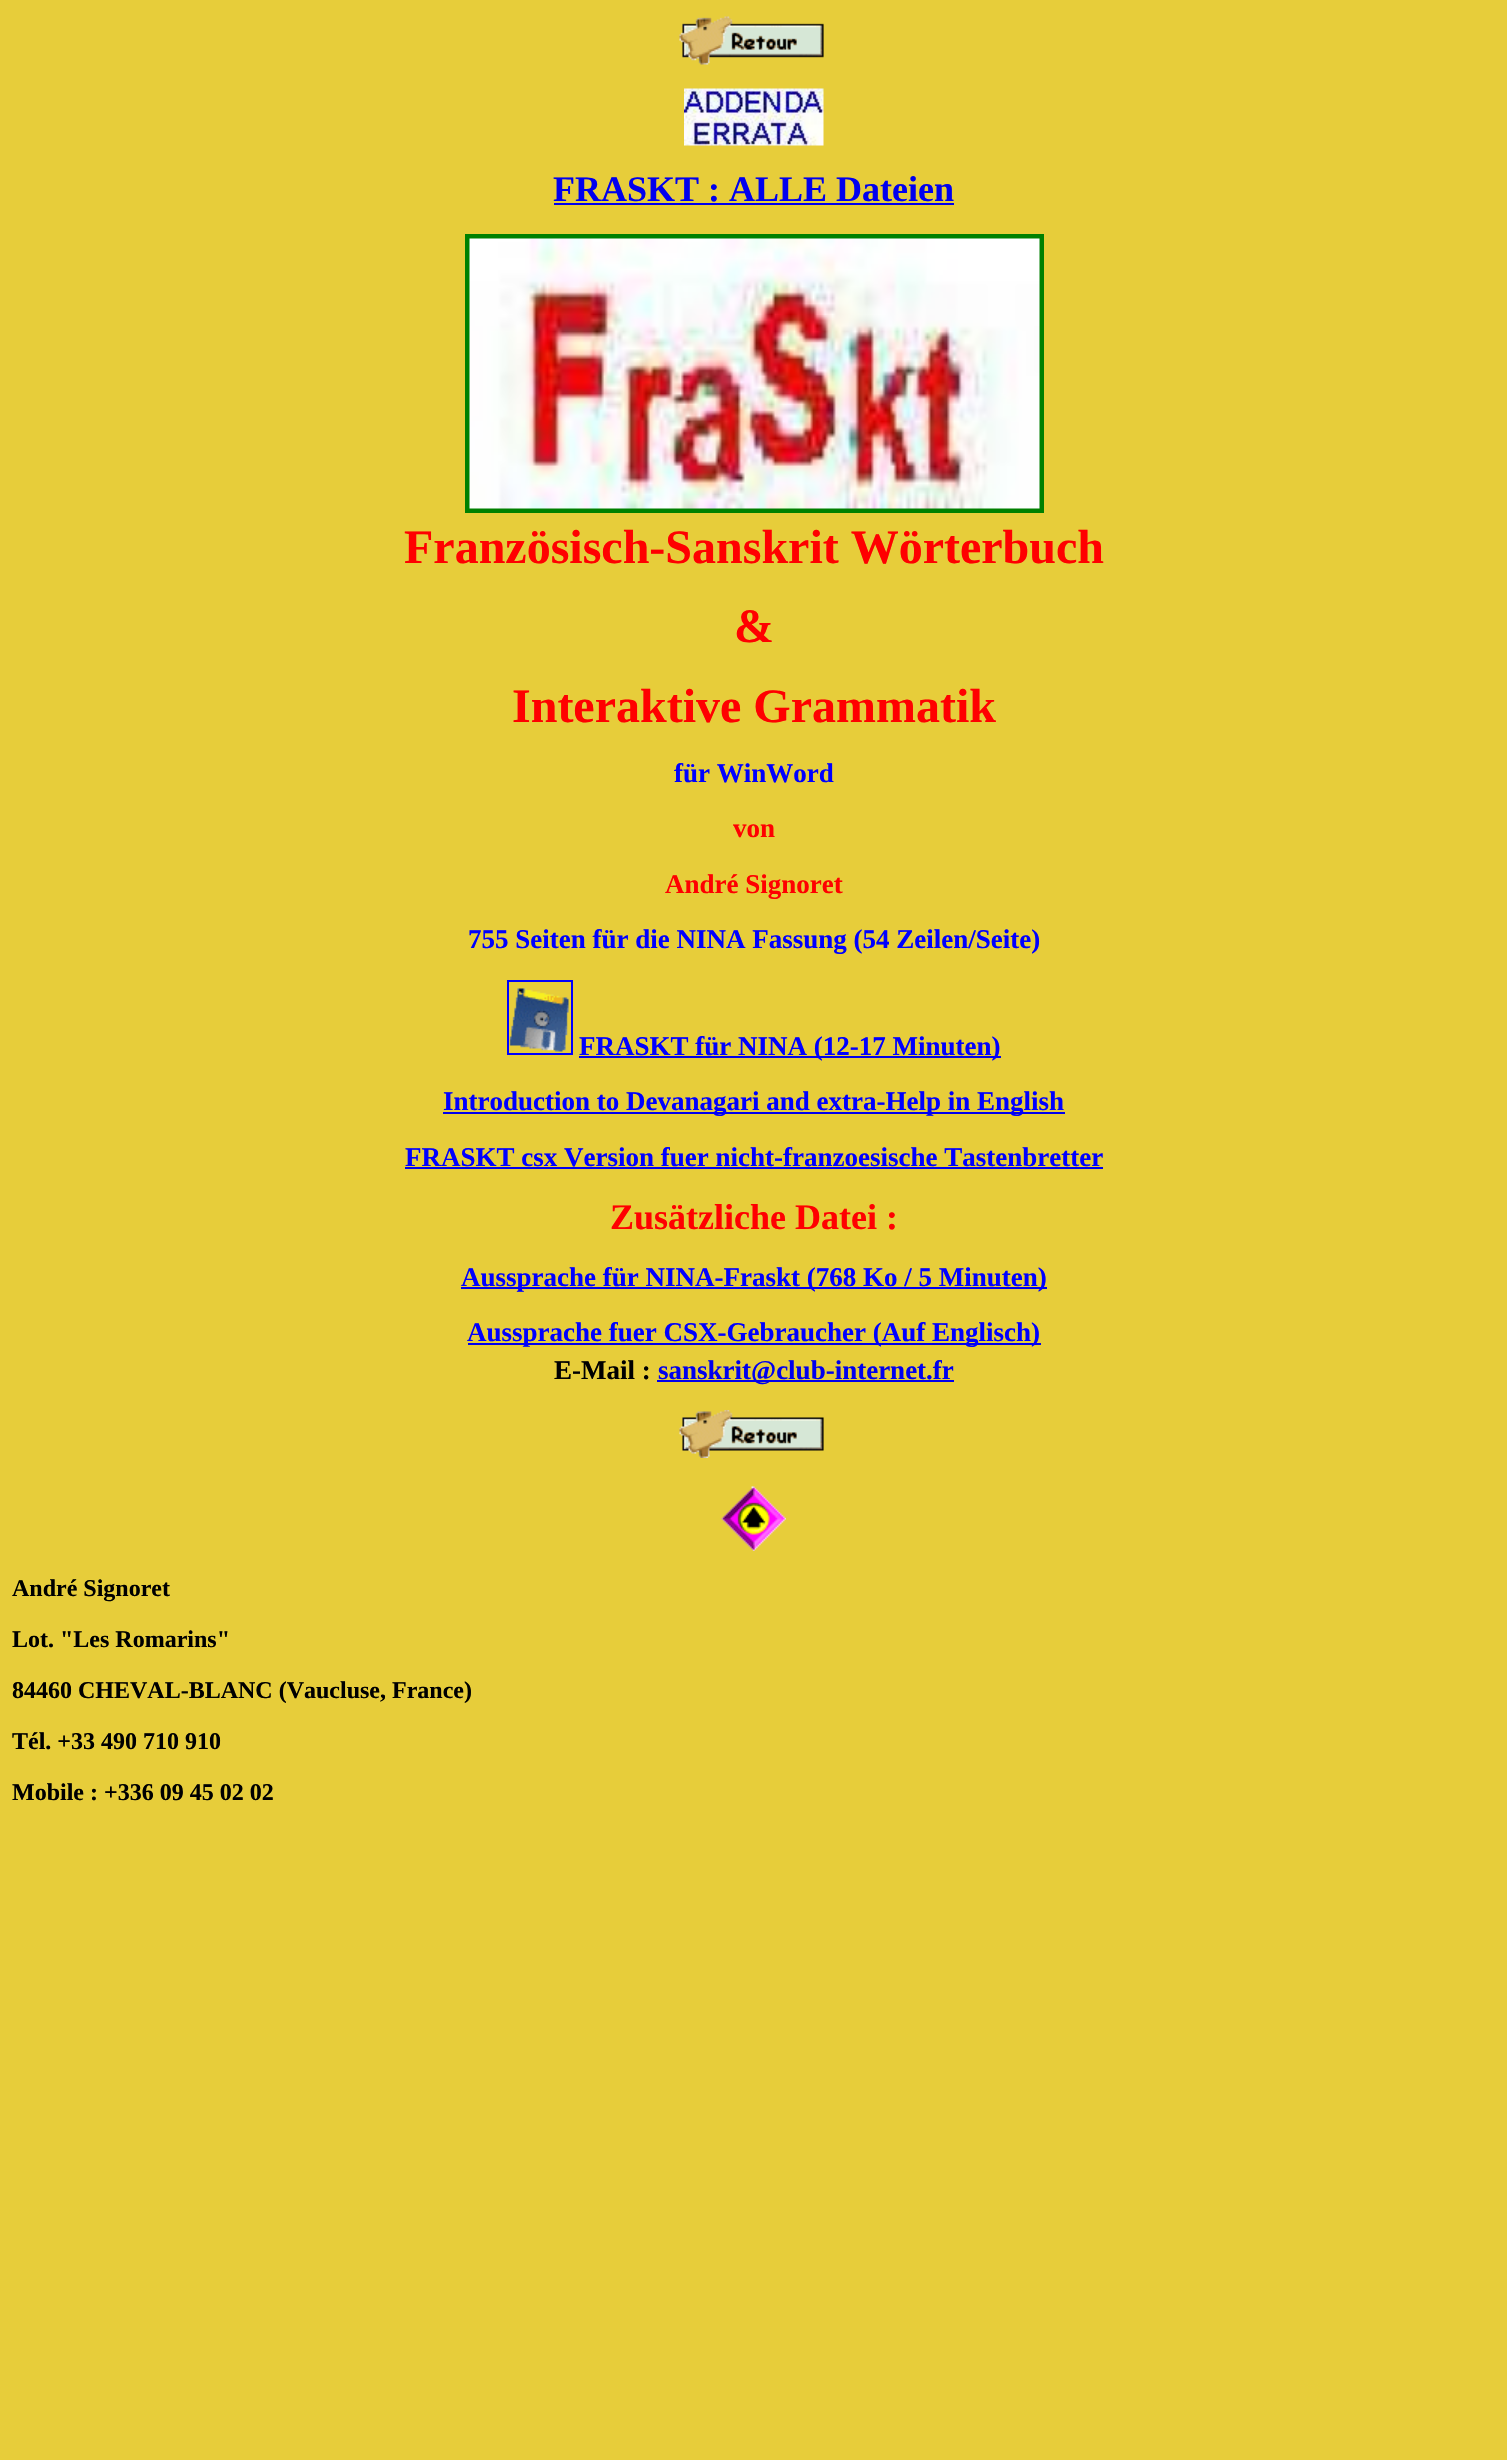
static SkFont makeFont(const char* family, int weight, float size, bool italic = false) {
  SkFontStyle style(weight, SkFontStyle::kNormal_Width,
    italic ? SkFontStyle::kItalic_Slant : SkFontStyle::kUpright_Slant);
  SkFont result(fontMgr->matchFamilyStyle(family, style), size);
  result.setSubpixel(true);
  return result;
}

static void text(SkCanvas* c, const char* s, float x, float y, const SkFont& font, SkColor color) {
  SkPaint ink(SkColor4f::FromColor(color));
  ink.setAntiAlias(true);
  c->drawString(s, x, y, font, ink);
}

static void box(SkCanvas* c, float l, float t, float r, float b, SkColor color) {
  SkPaint ink(SkColor4f::FromColor(color));
  ink.setAntiAlias(true);
  c->drawRect(SkRect::MakeLTRB(l, t, r, b), ink);
}

static void picture(SkCanvas* c, const char* path, float l, float t, float r, float b) {
  auto image = SkImages::DeferredFromEncodedData(SkData::MakeFromFileName(path));
  c->drawImageRect(image, SkRect::MakeLTRB(l, t, r, b), SkSamplingOptions());
}

void draw(SkCanvas* c) {
  SkPaint paint;
  paint.setAntiAlias(true);
  c->clear(0xffe7cd3a);
  picture(c, "img_01.png", 679, 16, 824, 65);
  picture(c, "img_02.png", 684, 88, 824, 146);
  SkFont face1 = makeFont("Liberation Serif", 700, 36);
  text(c, "FRASKT : ALLE Dateien", 553, 201, face1, 0xff0000ee);
  box(c, 554, 203, 954, 205, 0xff0000ee);
  paint.setStyle(SkPaint::kStroke_Style);
  paint.setStrokeWidth(5);
  paint.setColor(0xff008000);
  c->drawRect(SkRect::MakeLTRB(467.5f, 236.5f, 1041.5f, 510.5f), paint);
  picture(c, "img_03.png", 469, 238, 1040, 509);
  SkFont face2 = makeFont("Liberation Serif", 700, 48);
  text(c, "Französisch-Sanskrit Wörterbuch", 404, 563, face2, 0xffff0000);
  text(c, "&", 734, 642, face2, 0xffff0000);
  text(c, "Interaktive Grammatik", 512, 722, face2, 0xffff0000);
  SkFont face3 = makeFont("Liberation Serif", 700, 27);
  text(c, "für WinWord", 674, 782, face3, 0xff0000ff);
  text(c, "von", 733, 837, face3, 0xffff0000);
  text(c, "André Signoret", 665, 893, face3, 0xffff0000);
  text(c, "755 Seiten für die NINA Fassung (54 Zeilen/Seite)", 468, 948, face3, 0xff0000ff);
  paint.setStrokeWidth(2);
  paint.setColor(0xff0000ff);
  c->drawRect(SkRect::MakeLTRB(508, 981, 572, 1054), paint);
  picture(c, "img_04.png", 509, 988, 569, 1052);
  box(c, 579, 1056, 1001, 1058, 0xff0000ee);
  text(c, "FRASKT für NINA (12-17 Minuten)", 579, 1055, face3, 0xff0000ff);
  box(c, 443, 1112, 1065, 1114, 0xff0000ee);
  text(c, "Introduction to Devanagari and extra-Help in English", 443, 1110, face3, 0xff0000ff);
  text(c, "FRASKT csx Version fuer nicht-franzoesische Tastenbretter", 405, 1166, face3, 0xff0000ff);
  box(c, 405, 1167, 1103, 1169, 0xff0000ee);
  text(c, "Zusätzliche Datei :", 610, 1229, face1, 0xffff0000);
  box(c, 461, 1287, 1047, 1289, 0xff0000ee);
  text(c, "Aussprache für NINA-Fraskt (768 Ko / 5 Minuten)", 461, 1286, face3, 0xff0000ff);
  box(c, 468, 1343, 1041, 1345, 0xff0000ee);
  text(c, "Aussprache fuer CSX-Gebraucher (Auf Englisch)", 467, 1341, face3, 0xff0000ff);
  text(c, "E-Mail :", 554, 1379, face3, 0xff000000);
  box(c, 657, 1380, 954, 1382, 0xff0000ee);
  text(c, "sanskrit@club-internet.fr", 658, 1379, face3, 0xff0000ee);
  picture(c, "img_05.png", 679, 1410, 824, 1458);
  picture(c, "img_06.png", 721, 1486, 786, 1551);
  SkFont face4 = makeFont("Liberation Serif", 700, 24);
  text(c, "André Signoret", 12, 1596, face4, 0xff000000);
  text(c, "Lot. \"Les Romarins\"", 12, 1647, face4, 0xff000000);
  text(c, "84460 CHEVAL-BLANC (Vaucluse, France)", 12, 1698, face4, 0xff000000);
  text(c, "Tél. +33 490 710 910", 12, 1749, face4, 0xff000000);
  text(c, "Mobile : +336 09 45 02 02", 12, 1800, face4, 0xff000000);
}
